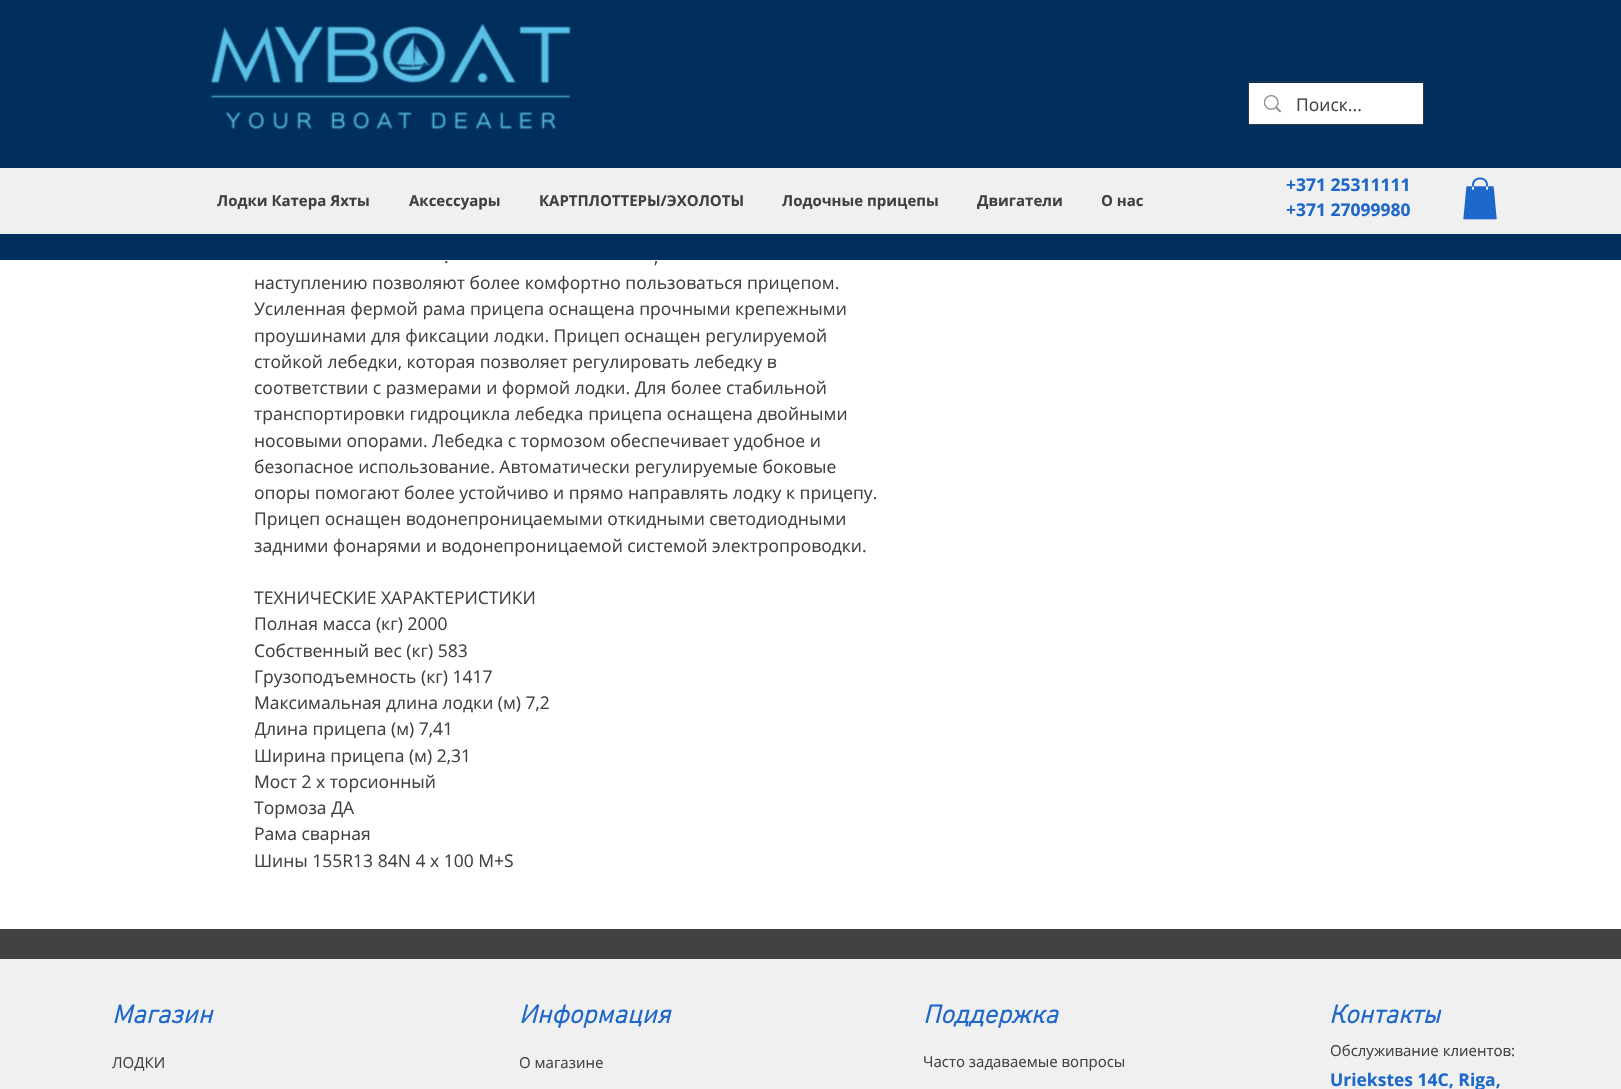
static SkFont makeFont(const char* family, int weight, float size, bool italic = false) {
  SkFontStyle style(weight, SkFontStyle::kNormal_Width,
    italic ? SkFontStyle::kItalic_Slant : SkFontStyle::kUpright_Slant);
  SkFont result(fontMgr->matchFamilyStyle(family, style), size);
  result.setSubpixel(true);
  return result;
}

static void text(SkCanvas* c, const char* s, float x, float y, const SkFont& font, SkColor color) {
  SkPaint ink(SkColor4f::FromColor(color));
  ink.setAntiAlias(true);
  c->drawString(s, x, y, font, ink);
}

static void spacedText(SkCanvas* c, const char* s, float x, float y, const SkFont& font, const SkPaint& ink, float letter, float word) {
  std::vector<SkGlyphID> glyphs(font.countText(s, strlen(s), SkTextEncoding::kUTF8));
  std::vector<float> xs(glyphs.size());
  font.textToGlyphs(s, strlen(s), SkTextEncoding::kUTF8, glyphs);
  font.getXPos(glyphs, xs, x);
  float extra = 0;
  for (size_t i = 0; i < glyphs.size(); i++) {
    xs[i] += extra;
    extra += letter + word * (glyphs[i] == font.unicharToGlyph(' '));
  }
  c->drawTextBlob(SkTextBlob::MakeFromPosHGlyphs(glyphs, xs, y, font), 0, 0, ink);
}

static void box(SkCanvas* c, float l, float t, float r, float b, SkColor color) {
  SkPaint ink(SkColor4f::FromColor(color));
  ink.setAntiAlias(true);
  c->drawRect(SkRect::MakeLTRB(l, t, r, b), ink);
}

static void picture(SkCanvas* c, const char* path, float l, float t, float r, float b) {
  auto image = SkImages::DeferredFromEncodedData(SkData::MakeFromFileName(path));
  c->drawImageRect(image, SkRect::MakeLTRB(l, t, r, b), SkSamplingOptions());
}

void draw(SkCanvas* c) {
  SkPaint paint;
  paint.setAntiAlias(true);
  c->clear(0xffffffff);
  box(c, 0, 0, 1621, 260, 0xff002e5d);
  picture(c, "img_01.png", 210, 23, 571, 130);
  paint.setStyle(SkPaint::kStroke_Style);
  paint.setStrokeWidth(1);
  paint.setColor(0xff27394c);
  c->drawRect(SkRect::MakeLTRB(1248.5f, 81.5f, 1423.5f, 124.5f), paint);
  box(c, 1249, 83, 1423, 124, 0xffffffff);
  picture(c, "img_02.png", 1264, 95, 1281, 113);
  SkFont face1 = makeFont("Open Sans", 400, 17.5f);
  text(c, "Поиск...", 1296, 111, face1, 0xff414141);
  box(c, 0, 168, 1621, 234, 0xfff0f0f0);
  SkFont face2 = makeFont("Open Sans", 700, 15);
  text(c, "Лодки Катера Яхты", 217, 206, face2, 0xff414141);
  text(c, "Аксессуары", 409, 206, face2, 0xff414141);
  text(c, "КАРТПЛОТТЕРЫ/ЭХОЛОТЫ", 539, 206, face2, 0xff414141);
  text(c, "Лодочные прицепы", 782, 206, face2, 0xff414141);
  text(c, "Двигатели", 977, 206, face2, 0xff414141);
  text(c, "О нас", 1101, 206, face2, 0xff414141);
  SkFont face3 = makeFont("Open Sans", 700, 17.5f);
  text(c, "+371 25311111", 1286, 191, face3, 0xff1e68cb);
  text(c, "+371 27099980", 1286, 216, face3, 0xff1e68cb);
  picture(c, "img_03.png", 1463, 177, 1497, 220);
  text(c, ".", 444, 263, face1, 0xff414141);
  text(c, ",", 654, 263, face1, 0xff414141);
  text(c, "наступлению позволяют более комфортно пользоваться прицепом.", 254, 289, face1, 0xff414141);
  text(c, "Усиленная фермой рама прицепа оснащена прочными крепежными", 254, 315, face1, 0xff414141);
  text(c, "проушинами для фиксации лодки. Прицеп оснащен регулируемой", 254, 342, face1, 0xff414141);
  text(c, "стойкой лебедки, которая позволяет регулировать лебедку в", 254, 368, face1, 0xff414141);
  text(c, "соответствии с размерами и формой лодки. Для более стабильной", 254, 394, face1, 0xff414141);
  text(c, "транспортировки гидроцикла лебедка прицепа оснащена двойными", 254, 420, face1, 0xff414141);
  text(c, "носовыми опорами. Лебедка с тормозом обеспечивает удобное и", 254, 447, face1, 0xff414141);
  text(c, "безопасное использование. Автоматически регулируемые боковые", 254, 473, face1, 0xff414141);
  text(c, "опоры помогают более устойчиво и прямо направлять лодку к прицепу.", 254, 499, face1, 0xff414141);
  text(c, "Прицеп оснащен водонепроницаемыми откидными светодиодными", 254, 525, face1, 0xff414141);
  text(c, "задними фонарями и водонепроницаемой системой электропроводки.", 254, 552, face1, 0xff414141);
  text(c, "ТЕХНИЧЕСКИЕ ХАРАКТЕРИСТИКИ", 254, 604, face1, 0xff414141);
  text(c, "Полная масса (кг) 2000", 254, 630, face1, 0xff414141);
  text(c, "Собственный вес (кг) 583", 254, 657, face1, 0xff414141);
  text(c, "Грузоподъемность (кг) 1417", 254, 683, face1, 0xff414141);
  text(c, "Максимальная длина лодки (м) 7,2", 254, 709, face1, 0xff414141);
  c->save();
  c->clipRect(SkRect::MakeLTRB(255, 0, 880, 873));
  text(c, "Длина прицепа (м) 7,41", 254, 735, face1, 0xff414141);
  c->restore();
  text(c, "Ширина прицепа (м) 2,31", 254, 762, face1, 0xff414141);
  text(c, "Мост 2 х торсионный", 254, 788, face1, 0xff414141);
  text(c, "Тормоза ДА", 254, 814, face1, 0xff414141);
  text(c, "Рама сварная", 254, 840, face1, 0xff414141);
  text(c, "Шины 155R13 84N 4 x 100 M+S", 254, 867, face1, 0xff414141);
  box(c, 0, 929, 1621, 959, 0xff414141);
  box(c, 0, 959, 1621, 1089, 0xfff0f0f0);
  SkFont face4 = makeFont("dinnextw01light", 700, 26.25f, true);
  paint.setStyle(SkPaint::kFill_Style);
  paint.setColor(0xff1e68cb);
  spacedText(c, "Магазин", 112, 1023, face4, paint, 0.25f, 0);
  SkFont face5 = makeFont("Open Sans", 400, 15);
  text(c, "ЛОДКИ", 112, 1068, face5, 0xff414141);
  spacedText(c, "Информация", 519, 1023, face4, paint, 0.25f, 0);
  text(c, "О магазине", 519, 1068, face5, 0xff414141);
  spacedText(c, "Поддержка", 923, 1023, face4, paint, 0.25f, 0);
  text(c, "Часто задаваемые вопросы", 923, 1067, face5, 0xff414141);
  spacedText(c, "Контакты", 1329, 1023, face4, paint, 0.25f, 0);
  text(c, "Обслуживание клиентов:", 1330, 1056, face5, 0xff414141);
  text(c, "Uriekstes 14C, Riga,", 1330, 1086, face3, 0xff1e68cb);
}
